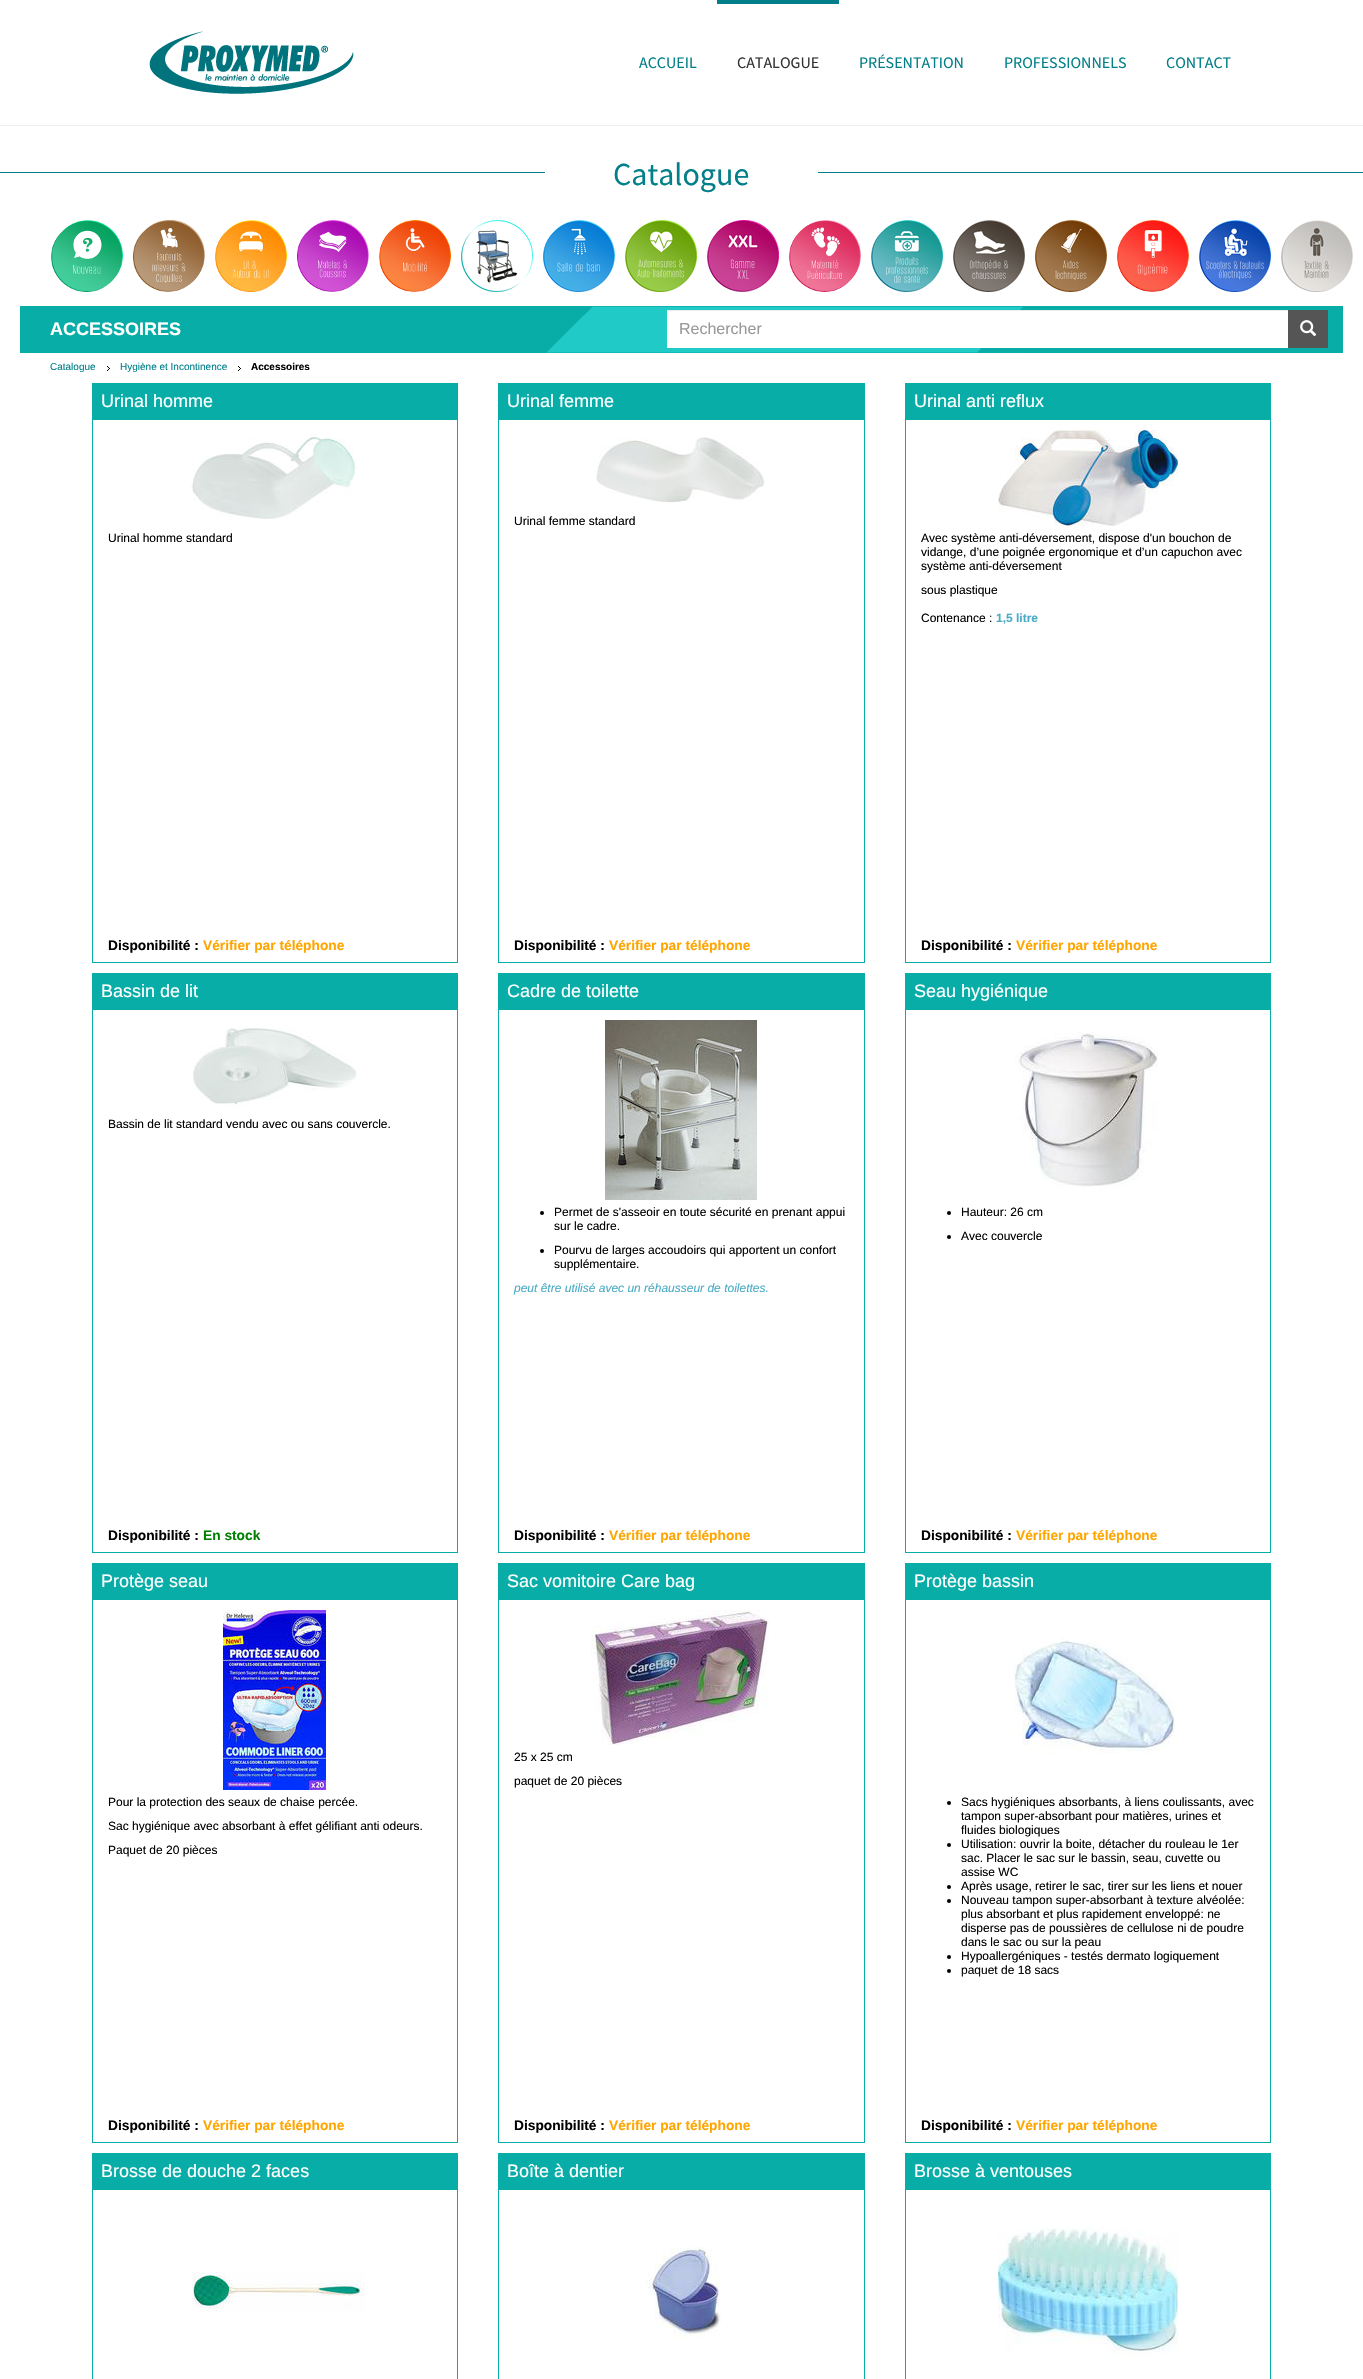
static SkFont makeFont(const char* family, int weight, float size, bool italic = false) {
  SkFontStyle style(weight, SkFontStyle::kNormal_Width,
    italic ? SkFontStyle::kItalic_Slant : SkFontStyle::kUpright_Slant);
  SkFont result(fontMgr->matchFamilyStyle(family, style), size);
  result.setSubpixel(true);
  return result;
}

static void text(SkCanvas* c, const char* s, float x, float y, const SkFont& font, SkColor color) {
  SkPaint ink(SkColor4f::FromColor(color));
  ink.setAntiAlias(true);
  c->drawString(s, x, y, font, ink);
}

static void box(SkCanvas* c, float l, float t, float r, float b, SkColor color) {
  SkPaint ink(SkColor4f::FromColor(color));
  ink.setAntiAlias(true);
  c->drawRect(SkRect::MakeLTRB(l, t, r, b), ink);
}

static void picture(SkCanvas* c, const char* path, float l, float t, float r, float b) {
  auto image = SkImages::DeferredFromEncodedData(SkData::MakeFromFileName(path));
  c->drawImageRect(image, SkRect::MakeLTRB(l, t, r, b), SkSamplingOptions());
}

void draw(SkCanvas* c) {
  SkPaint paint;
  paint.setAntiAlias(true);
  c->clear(0xffffffff);
  box(c, 0, 125, 1363, 126, 0xffeeeeee);
  picture(c, "img_01.png", 149, 31, 354, 94);
  SkFont face1 = makeFont("Source Sans Pro", 400, 16);
  text(c, "ACCUEIL", 639, 68, face1, 0xff027f89);
  box(c, 717, 0, 839, 4, 0xff027f89);
  text(c, "CATALOGUE", 737, 68, face1, 0xff333333);
  text(c, "PRÉSENTATION", 859, 68, face1, 0xff027f89);
  text(c, "PROFESSIONNELS", 1004, 68, face1, 0xff027f89);
  text(c, "CONTACT", 1166, 68, face1, 0xff027f89);
  box(c, 0, 172, 545, 173, 0xff027f89);
  SkFont face2 = makeFont("Source Sans Pro", 400, 32);
  text(c, "Catalogue", 613, 185, face2, 0xff027f89);
  box(c, 818, 172, 1363, 173, 0xff027f89);
  picture(c, "img_02.png", 51, 220, 123, 292);
  picture(c, "img_03.png", 133, 220, 205, 292);
  picture(c, "img_04.png", 215, 220, 287, 292);
  picture(c, "img_05.png", 297, 220, 369, 292);
  picture(c, "img_06.png", 379, 220, 451, 292);
  picture(c, "img_07.png", 461, 220, 533, 292);
  picture(c, "img_08.png", 543, 220, 615, 292);
  picture(c, "img_09.png", 625, 220, 697, 292);
  picture(c, "img_10.png", 707, 220, 779, 292);
  picture(c, "img_11.png", 789, 220, 861, 292);
  picture(c, "img_12.png", 871, 220, 943, 292);
  picture(c, "img_13.png", 953, 220, 1025, 292);
  picture(c, "img_14.png", 1035, 220, 1107, 292);
  picture(c, "img_15.png", 1117, 220, 1189, 292);
  picture(c, "img_16.png", 1199, 220, 1271, 292);
  picture(c, "img_17.png", 1281, 220, 1353, 292);
  box(c, 20, 306, 1343, 353, 0xff09ada8);
  picture(c, "img_18.png", 547, 306, 1023, 353);
  SkFont face3 = makeFont("Liberation Sans", 700, 18);
  text(c, "ACCESSOIRES", 50, 335, face3, 0xffffffff);
  SkFont face4 = makeFont("Liberation Sans", 400, 10);
  text(c, "Catalogue", 50, 370, face4, 0xff027f89);
  picture(c, "img_19.png", 107, 366, 110, 371);
  text(c, "Hygiène et Incontinence", 120, 370, face4, 0xff027f89);
  picture(c, "img_19.png", 238, 366, 241, 371);
  SkFont face5 = makeFont("Liberation Sans", 700, 10);
  text(c, "Accessoires", 251, 370, face5, 0xff000000);
  paint.setStyle(SkPaint::kStroke_Style);
  paint.setStrokeWidth(1);
  paint.setColor(0xff09ada8);
  c->drawRect(SkRect::MakeLTRB(92.5f, 383.5f, 457.5f, 962.5f), paint);
  box(c, 93, 384, 457, 420, 0xff09ada8);
  SkFont face6 = makeFont("Liberation Sans", 400, 18);
  text(c, "Urinal homme", 101, 407, face6, 0xffffffff);
  picture(c, "img_20.png", 191, 434, 356, 519);
  SkFont face7 = makeFont("Liberation Sans", 400, 12);
  text(c, "Urinal homme standard", 108, 542, face7, 0xff000000);
  SkFont face8 = makeFont("Liberation Sans", 700, 13.75f);
  text(c, "Disponibilité :", 108, 950, face8, 0xff000000);
  text(c, "Vérifier par téléphone", 203, 950, face8, 0xffffa500);
  c->drawRect(SkRect::MakeLTRB(498.5f, 383.5f, 864.5f, 962.5f), paint);
  box(c, 499, 384, 864, 420, 0xff09ada8);
  text(c, "Urinal femme", 507, 407, face6, 0xffffffff);
  picture(c, "img_21.png", 596, 437, 765, 503);
  text(c, "Urinal femme standard", 514, 525, face7, 0xff000000);
  text(c, "Disponibilité :", 514, 950, face8, 0xff000000);
  text(c, "Vérifier par téléphone", 609, 950, face8, 0xffffa500);
  c->drawRect(SkRect::MakeLTRB(905.5f, 383.5f, 1270.5f, 962.5f), paint);
  box(c, 906, 384, 1270, 420, 0xff09ada8);
  text(c, "Urinal anti reflux", 914, 407, face6, 0xffffffff);
  picture(c, "img_22.png", 998, 430, 1178, 526);
  text(c, "Avec système anti-déversement, dispose d'un bouchon de", 921, 542, face7, 0xff000000);
  text(c, "vidange, d’une poignée ergonomique et d’un capuchon avec", 921, 556, face7, 0xff000000);
  text(c, "système anti-déversement", 921, 570, face7, 0xff000000);
  text(c, "sous plastique", 921, 594, face7, 0xff000000);
  text(c, "Contenance :", 921, 622, face7, 0xff000000);
  SkFont face9 = makeFont("Liberation Sans", 700, 12);
  text(c, "1,5 litre", 996, 622, face9, 0xff4bacc6);
  text(c, "Disponibilité :", 921, 950, face8, 0xff000000);
  text(c, "Vérifier par téléphone", 1016, 950, face8, 0xffffa500);
  c->drawRect(SkRect::MakeLTRB(92.5f, 973.5f, 457.5f, 1552.5f), paint);
  box(c, 93, 974, 457, 1010, 0xff09ada8);
  text(c, "Bassin de lit", 101, 997, face6, 0xffffffff);
  picture(c, "img_23.png", 193, 1028, 357, 1108);
  text(c, "Bassin de lit standard vendu avec ou sans couvercle.", 108, 1128, face7, 0xff000000);
  text(c, "Disponibilité :", 108, 1540, face8, 0xff000000);
  text(c, "En stock", 203, 1540, face8, 0xff008000);
  c->drawRect(SkRect::MakeLTRB(498.5f, 973.5f, 864.5f, 1552.5f), paint);
  box(c, 499, 974, 864, 1010, 0xff09ada8);
  text(c, "Cadre de toilette", 507, 997, face6, 0xffffffff);
  picture(c, "img_24.png", 605, 1020, 757, 1200);
  paint.setStyle(SkPaint::kFill_Style);
  paint.setColor(0xff000000);
  c->drawCircle(542, 1213, 2, paint);
  text(c, "Permet de s'asseoir en toute sécurité en prenant appui", 554, 1216, face7, 0xff000000);
  text(c, "sur le cadre.", 554, 1230, face7, 0xff000000);
  c->drawCircle(542, 1251, 2, paint);
  text(c, "Pourvu de larges accoudoirs qui apportent un confort", 554, 1254, face7, 0xff000000);
  text(c, "supplémentaire.", 554, 1268, face7, 0xff000000);
  SkFont face10 = makeFont("Liberation Sans", 400, 12, true);
  text(c, "peut être utilisé avec un réhausseur de toilettes.", 514, 1292, face10, 0xff4bacc6);
  text(c, "Disponibilité :", 514, 1540, face8, 0xff000000);
  text(c, "Vérifier par téléphone", 609, 1540, face8, 0xffffa500);
  paint.setStyle(SkPaint::kStroke_Style);
  paint.setColor(0xff09ada8);
  c->drawRect(SkRect::MakeLTRB(905.5f, 973.5f, 1270.5f, 1552.5f), paint);
  box(c, 906, 974, 1270, 1010, 0xff09ada8);
  text(c, "Seau hygiénique", 914, 997, face6, 0xffffffff);
  picture(c, "img_25.png", 1014, 1032, 1158, 1187);
  paint.setStyle(SkPaint::kFill_Style);
  paint.setColor(0xff000000);
  c->drawCircle(949, 1213, 2, paint);
  text(c, "Hauteur: 26 cm", 961, 1216, face7, 0xff000000);
  c->drawCircle(949, 1237, 2, paint);
  text(c, "Avec couvercle", 961, 1240, face7, 0xff000000);
  text(c, "Disponibilité :", 921, 1540, face8, 0xff000000);
  text(c, "Vérifier par téléphone", 1016, 1540, face8, 0xffffa500);
  paint.setStyle(SkPaint::kStroke_Style);
  paint.setColor(0xff09ada8);
  c->drawRect(SkRect::MakeLTRB(92.5f, 1563.5f, 457.5f, 2142.5f), paint);
  box(c, 93, 1564, 457, 1600, 0xff09ada8);
  text(c, "Protège seau", 101, 1587, face6, 0xffffffff);
  picture(c, "img_26.png", 223, 1610, 326, 1790);
  text(c, "Pour la protection des seaux de chaise percée.", 108, 1806, face7, 0xff000000);
  text(c, "Sac hygiénique avec absorbant à effet gélifiant anti odeurs.", 108, 1830, face7, 0xff000000);
  text(c, "Paquet de 20 pièces", 108, 1854, face7, 0xff000000);
  text(c, "Disponibilité :", 108, 2130, face8, 0xff000000);
  text(c, "Vérifier par téléphone", 203, 2130, face8, 0xffffa500);
  c->drawRect(SkRect::MakeLTRB(498.5f, 1563.5f, 864.5f, 2142.5f), paint);
  box(c, 499, 1564, 864, 1600, 0xff09ada8);
  text(c, "Sac vomitoire Care bag", 507, 1587, face6, 0xffffffff);
  picture(c, "img_27.png", 591, 1610, 769, 1745);
  text(c, "25 x 25 cm", 514, 1761, face7, 0xff000000);
  text(c, "paquet de 20 pièces", 514, 1785, face7, 0xff000000);
  text(c, "Disponibilité :", 514, 2130, face8, 0xff000000);
  text(c, "Vérifier par téléphone", 609, 2130, face8, 0xffffa500);
  c->drawRect(SkRect::MakeLTRB(905.5f, 1563.5f, 1270.5f, 2142.5f), paint);
  box(c, 906, 1564, 1270, 1600, 0xff09ada8);
  text(c, "Protège bassin", 914, 1587, face6, 0xffffffff);
  picture(c, "img_28.png", 1014, 1638, 1175, 1754);
  paint.setStyle(SkPaint::kFill_Style);
  paint.setColor(0xff000000);
  c->drawCircle(949, 1803, 2, paint);
  text(c, "Sacs hygiéniques absorbants, à liens coulissants, avec", 961, 1806, face7, 0xff000000);
  text(c, "tampon super-absorbant pour matières, urines et", 961, 1820, face7, 0xff000000);
  text(c, "fluides biologiques", 961, 1834, face7, 0xff000000);
  c->drawCircle(949, 1845, 2, paint);
  text(c, "Utilisation: ouvrir la boite, détacher du rouleau le 1er", 961, 1848, face7, 0xff000000);
  text(c, "sac. Placer le sac sur le bassin, seau, cuvette ou", 961, 1862, face7, 0xff000000);
  text(c, "assise WC", 961, 1876, face7, 0xff000000);
  c->drawCircle(949, 1887, 2, paint);
  text(c, "Après usage, retirer le sac, tirer sur les liens et nouer", 961, 1890, face7, 0xff000000);
  c->drawCircle(949, 1901, 2, paint);
  text(c, "Nouveau tampon super-absorbant à texture alvéolée:", 961, 1904, face7, 0xff000000);
  text(c, "plus absorbant et plus rapidement enveloppé: ne", 961, 1918, face7, 0xff000000);
  text(c, "disperse pas de poussières de cellulose ni de poudre", 961, 1932, face7, 0xff000000);
  text(c, "dans le sac ou sur la peau", 961, 1946, face7, 0xff000000);
  c->drawCircle(949, 1957, 2, paint);
  text(c, "Hypoallergéniques - testés dermato logiquement", 961, 1960, face7, 0xff000000);
  c->drawCircle(949, 1971, 2, paint);
  text(c, "paquet de 18 sacs", 961, 1974, face7, 0xff000000);
  {
    const SkColor colors[] = {0x00ffffff, 0xffffffff};
    const float stops[] = {0, 0.9f};
    const SkPoint ends[] = {{1088, 1968}, {1088, 2118}};
    paint.setShader(SkGradientShader::MakeLinear(ends, colors, stops, 2, SkTileMode::kClamp));
    paint.setAlpha(255);
  }
  c->drawRect(SkRect::MakeLTRB(947, 1971, 1059, 1977), paint);
  text(c, "Disponibilité :", 921, 2130, face8, 0xff000000);
  text(c, "Vérifier par téléphone", 1016, 2130, face8, 0xffffa500);
  paint.setStyle(SkPaint::kStroke_Style);
  paint.setShader(nullptr);
  paint.setColor(0xff09ada8);
  c->drawRect(SkRect::MakeLTRB(92.5f, 2153.5f, 457.5f, 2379.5f), paint);
  box(c, 93, 2154, 457, 2190, 0xff09ada8);
  text(c, "Brosse de douche 2 faces", 101, 2177, face6, 0xffffffff);
  picture(c, "img_29.png", 192, 2272, 365, 2312);
  c->drawRect(SkRect::MakeLTRB(498.5f, 2153.5f, 864.5f, 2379.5f), paint);
  box(c, 499, 2154, 864, 2190, 0xff09ada8);
  text(c, "Boîte à dentier", 507, 2177, face6, 0xffffffff);
  picture(c, "img_30.png", 645, 2247, 721, 2340);
  c->drawRect(SkRect::MakeLTRB(905.5f, 2153.5f, 1270.5f, 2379.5f), paint);
  box(c, 906, 2154, 1270, 2190, 0xff09ada8);
  text(c, "Brosse à ventouses", 914, 2177, face6, 0xffffffff);
  picture(c, "img_31.png", 998, 2227, 1178, 2356);
  box(c, 667, 311, 1288, 348, 0xffffffff);
  box(c, 667, 310, 1289, 311, 0xffececec);
  SkFont face11 = makeFont("Liberation Sans", 400, 16);
  text(c, "Rechercher", 679, 334, face11, 0xff999999);
  box(c, 1288, 310, 1328, 348, 0xff555555);
  picture(c, "img_32.png", 1300, 320, 1317, 336);
}
